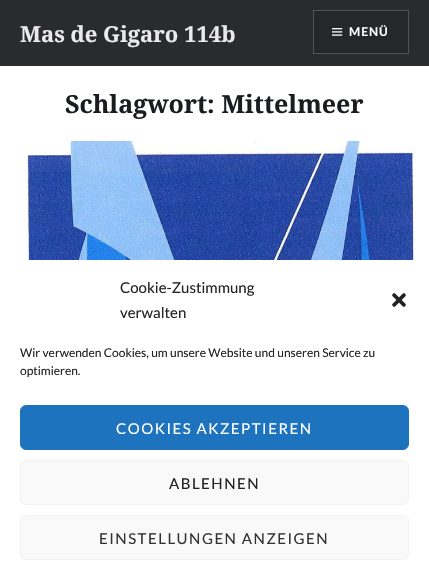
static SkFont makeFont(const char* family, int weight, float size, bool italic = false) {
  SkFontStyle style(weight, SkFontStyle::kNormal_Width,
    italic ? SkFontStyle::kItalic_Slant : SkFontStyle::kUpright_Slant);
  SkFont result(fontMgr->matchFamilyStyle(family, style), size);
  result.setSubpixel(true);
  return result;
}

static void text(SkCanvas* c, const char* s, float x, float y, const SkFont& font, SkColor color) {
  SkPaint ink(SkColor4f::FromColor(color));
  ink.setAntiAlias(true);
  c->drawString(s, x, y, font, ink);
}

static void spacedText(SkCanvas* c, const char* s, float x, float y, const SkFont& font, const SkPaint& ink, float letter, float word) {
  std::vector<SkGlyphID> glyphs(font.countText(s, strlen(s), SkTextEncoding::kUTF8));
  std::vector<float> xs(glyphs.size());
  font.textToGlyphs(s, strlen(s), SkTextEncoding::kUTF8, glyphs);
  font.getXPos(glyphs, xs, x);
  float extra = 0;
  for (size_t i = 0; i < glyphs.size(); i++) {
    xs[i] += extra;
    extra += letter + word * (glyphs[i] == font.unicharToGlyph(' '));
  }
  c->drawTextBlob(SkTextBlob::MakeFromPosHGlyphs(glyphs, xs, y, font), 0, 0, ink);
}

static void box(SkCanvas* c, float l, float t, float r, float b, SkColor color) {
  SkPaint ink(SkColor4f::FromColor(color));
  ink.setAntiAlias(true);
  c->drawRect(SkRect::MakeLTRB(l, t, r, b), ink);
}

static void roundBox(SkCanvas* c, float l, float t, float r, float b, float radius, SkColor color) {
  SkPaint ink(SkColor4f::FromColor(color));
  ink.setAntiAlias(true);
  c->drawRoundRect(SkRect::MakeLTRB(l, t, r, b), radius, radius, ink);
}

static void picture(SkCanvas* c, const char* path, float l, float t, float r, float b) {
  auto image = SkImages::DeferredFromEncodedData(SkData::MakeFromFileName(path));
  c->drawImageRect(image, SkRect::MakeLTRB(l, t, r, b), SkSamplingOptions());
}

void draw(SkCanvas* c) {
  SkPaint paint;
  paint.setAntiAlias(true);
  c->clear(0xffffffff);
  box(c, 0, 0, 429, 66, 0xff292c2f);
  SkFont face1 = makeFont("Noto Serif", 700, 22);
  text(c, "Mas de Gigaro 114b", 20, 42, face1, 0xffeaeaea);
  paint.setColor(0xff25282a);
  c->drawRect(SkRect::MakeLTRB(313.5f, 10.5f, 408.5f, 53.5f), paint);
  paint.setStyle(SkPaint::kStroke_Style);
  paint.setStrokeWidth(1);
  paint.setColor(0xff515355);
  c->drawRect(SkRect::MakeLTRB(313.5f, 10.5f, 408.5f, 53.5f), paint);
  picture(c, "img_01.png", 332, 28, 343, 36);
  SkFont face2 = makeFont("Lato", 700, 12);
  paint.setStyle(SkPaint::kFill_Style);
  paint.setColor(0xffffffff);
  spacedText(c, "MENÜ", 349, 36, face2, paint, 1, 0);
  SkFont face3 = makeFont("Noto Serif", 700, 25);
  text(c, "Schlagwort: Mittelmeer", 65, 113, face3, 0xff1a1c1e);
  picture(c, "img_02.png", 0, 141, 429, 272);
  roundBox(c, 0, 260, 429, 585, 12, 0xffffffff);
  SkFont face4 = makeFont("Lato", 400, 15);
  text(c, "Cookie-Zustimmung", 120, 293, face4, 0xff222222);
  text(c, "verwalten", 120, 318, face4, 0xff222222);
  picture(c, "img_03.png", 392, 293, 406, 307);
  SkFont face5 = makeFont("Lato", 400, 12);
  text(c, "Wir verwenden Cookies, um unsere Website und unseren Service zu", 20, 357, face5, 0xff222222);
  text(c, "optimieren.", 20, 375, face5, 0xff222222);
  paint.setColor(0xff1e73be);
  c->drawRoundRect(SkRect::MakeLTRB(20.5f, 405.5f, 408.5f, 449.5f), 5.5f, 5.5f, paint);
  paint.setStyle(SkPaint::kStroke_Style);
  c->drawRoundRect(SkRect::MakeLTRB(20.5f, 405.5f, 408.5f, 449.5f), 5.5f, 5.5f, paint);
  paint.setStyle(SkPaint::kFill_Style);
  paint.setColor(0xffffffff);
  spacedText(c, "COOKIES AKZEPTIEREN", 116, 434, face4, paint, 1.5f, 0);
  paint.setColor(0xfff9f9f9);
  c->drawRoundRect(SkRect::MakeLTRB(20.5f, 460.5f, 408.5f, 504.5f), 5.5f, 5.5f, paint);
  paint.setStyle(SkPaint::kStroke_Style);
  paint.setColor(0xfff2f2f2);
  c->drawRoundRect(SkRect::MakeLTRB(20.5f, 460.5f, 408.5f, 504.5f), 5.5f, 5.5f, paint);
  paint.setStyle(SkPaint::kFill_Style);
  paint.setColor(0xff222222);
  spacedText(c, "ABLEHNEN", 169, 489, face4, paint, 1.5f, 0);
  paint.setColor(0xfff9f9f9);
  c->drawRoundRect(SkRect::MakeLTRB(20.5f, 515.5f, 408.5f, 559.5f), 5.5f, 5.5f, paint);
  paint.setStyle(SkPaint::kStroke_Style);
  paint.setColor(0xfff2f2f2);
  c->drawRoundRect(SkRect::MakeLTRB(20.5f, 515.5f, 408.5f, 559.5f), 5.5f, 5.5f, paint);
  paint.setStyle(SkPaint::kFill_Style);
  paint.setColor(0xff333333);
  spacedText(c, "EINSTELLUNGEN ANZEIGEN", 99, 544, face4, paint, 1.5f, 0);
}
